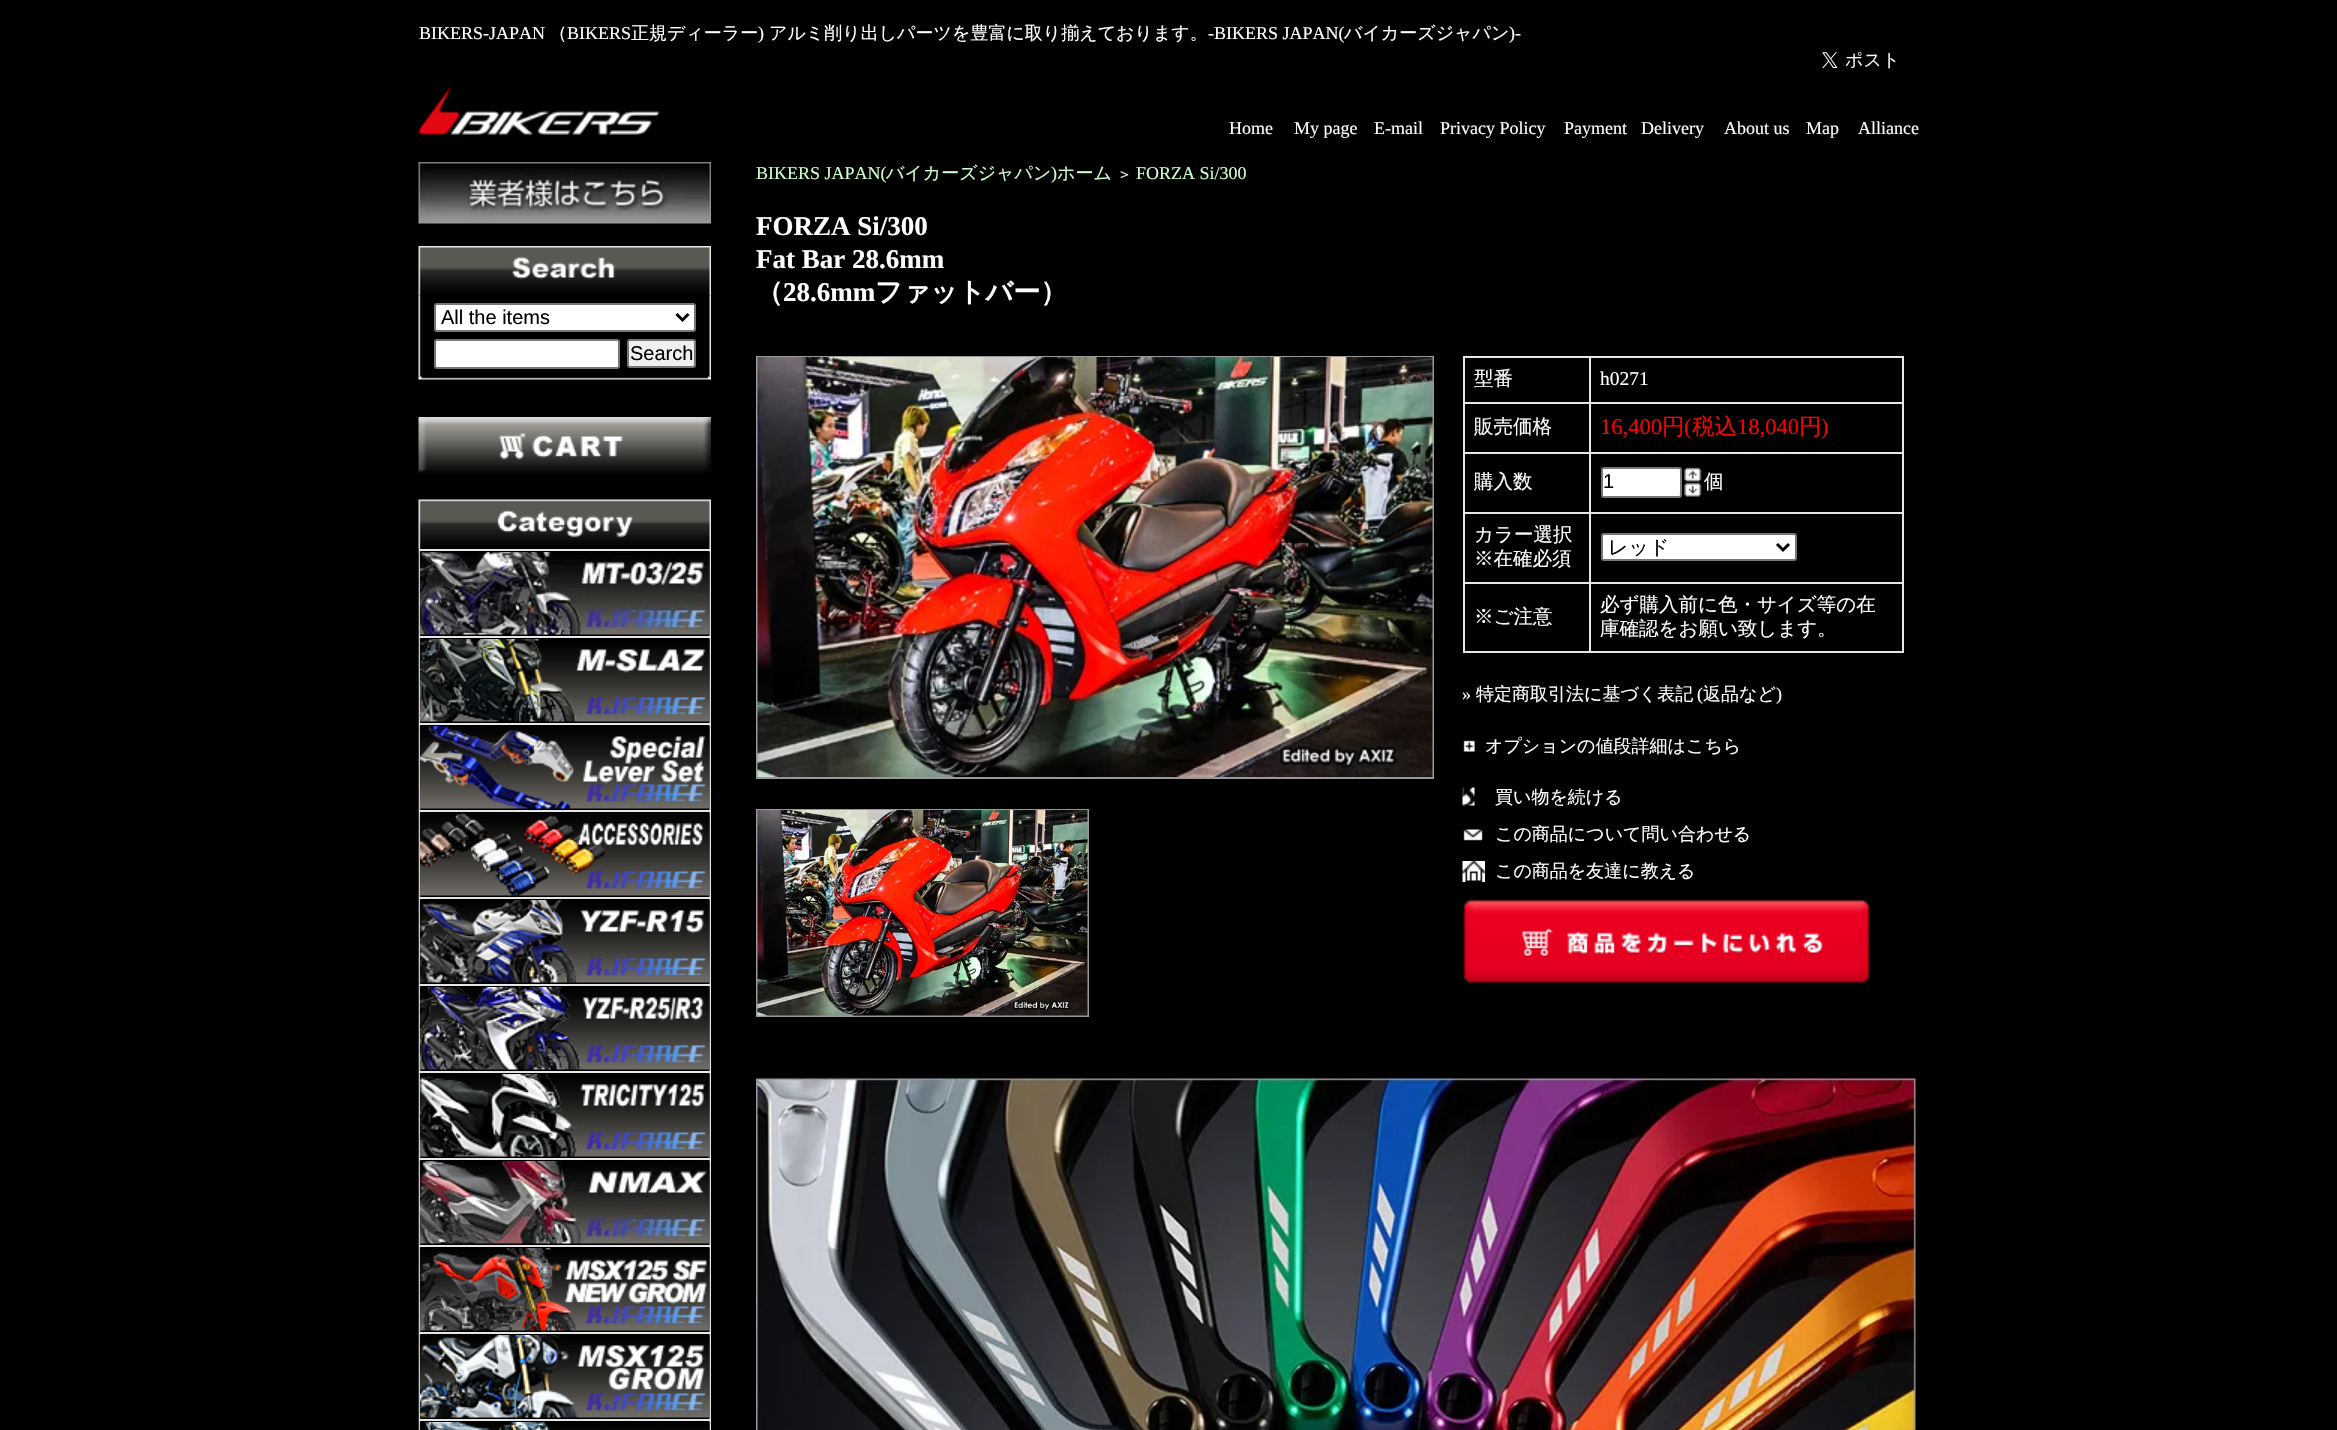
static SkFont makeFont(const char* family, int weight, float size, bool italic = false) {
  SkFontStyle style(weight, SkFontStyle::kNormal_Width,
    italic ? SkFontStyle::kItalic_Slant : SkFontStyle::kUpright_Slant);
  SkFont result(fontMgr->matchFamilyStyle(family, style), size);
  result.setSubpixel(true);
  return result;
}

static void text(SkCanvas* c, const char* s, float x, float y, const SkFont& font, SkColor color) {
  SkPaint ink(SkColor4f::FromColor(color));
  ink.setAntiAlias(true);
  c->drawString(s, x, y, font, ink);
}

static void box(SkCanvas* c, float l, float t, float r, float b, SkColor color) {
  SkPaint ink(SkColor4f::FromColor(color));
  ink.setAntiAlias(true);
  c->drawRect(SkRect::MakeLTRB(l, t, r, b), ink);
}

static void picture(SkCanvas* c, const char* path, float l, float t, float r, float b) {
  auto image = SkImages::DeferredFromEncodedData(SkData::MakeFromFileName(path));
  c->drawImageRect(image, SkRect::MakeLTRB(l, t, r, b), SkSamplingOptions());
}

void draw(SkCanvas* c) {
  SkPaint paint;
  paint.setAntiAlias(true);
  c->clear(0xff000000);
  SkFont face1 = makeFont("Liberation Serif", 400, 18);
  text(c, "BIKERS-JAPAN", 419, 39, face1, 0xffffffff);
  SkFont face2 = makeFont("WenQuanYi Zen Hei", 500, 18);
  text(c, "（", 549, 39, face2, 0xffffffff);
  text(c, "BIKERS", 567, 39, face1, 0xffffffff);
  text(c, "正規ディーラー", 631, 39, face2, 0xffffffff);
  text(c, ")", 758, 39, face1, 0xffffffff);
  text(c, "アルミ削り出しパーツを豊富に取り揃えております。", 769, 39, face2, 0xffffffff);
  text(c, "-BIKERS JAPAN(", 1208, 39, face1, 0xffffffff);
  text(c, "バイカーズジャパン", 1344, 39, face2, 0xffffffff);
  text(c, ")-", 1509, 39, face1, 0xffffffff);
  picture(c, "img_01.png", 1822, 52, 1896, 69);
  picture(c, "img_02.png", 418, 85, 660, 135);
  text(c, "Home", 1229, 134, face1, 0xffffffff);
  text(c, "My page", 1294, 134, face1, 0xffffffff);
  text(c, "E-mail", 1374, 134, face1, 0xffffffff);
  text(c, "Privacy Policy", 1440, 134, face1, 0xffffffff);
  text(c, "Payment", 1564, 134, face1, 0xffffffff);
  text(c, "Delivery", 1641, 134, face1, 0xffffffff);
  text(c, "About us", 1724, 134, face1, 0xffffffff);
  text(c, "Map", 1806, 134, face1, 0xffffffff);
  text(c, "Alliance", 1858, 134, face1, 0xffffffff);
  picture(c, "img_03.png", 418, 162, 711, 224);
  picture(c, "img_05.png", 418, 295, 711, 377);
  picture(c, "img_04.png", 418, 246, 711, 296);
  paint.setColor(0xffffffff);
  c->drawRoundRect(SkRect::MakeLTRB(435, 304, 695, 331), 2, 2, paint);
  paint.setStyle(SkPaint::kStroke_Style);
  paint.setStrokeWidth(2);
  paint.setColor(0xff767676);
  c->drawRoundRect(SkRect::MakeLTRB(435, 304, 695, 331), 2, 2, paint);
  paint.setStrokeWidth(3);
  paint.setColor(0xff000000);
  c->drawPath(SkPathBuilder().moveTo(676.5f, 314).lineTo(682.5f, 320).lineTo(688.5f, 314).detach(), paint);
  SkFont face3 = makeFont("Liberation Sans", 400, 20);
  text(c, "All the items", 441, 324, face3, 0xff000000);
  paint.setStyle(SkPaint::kFill_Style);
  paint.setColor(0xffffffff);
  c->drawRoundRect(SkRect::MakeLTRB(435, 340, 619, 368), 2, 2, paint);
  paint.setStyle(SkPaint::kStroke_Style);
  paint.setStrokeWidth(2);
  paint.setColor(0xff767676);
  c->drawRoundRect(SkRect::MakeLTRB(435, 340, 619, 368), 2, 2, paint);
  paint.setStyle(SkPaint::kFill_Style);
  paint.setColor(0xffefefef);
  c->drawRoundRect(SkRect::MakeLTRB(628, 340, 695, 367), 2, 2, paint);
  paint.setStyle(SkPaint::kStroke_Style);
  paint.setColor(0xff767676);
  c->drawRoundRect(SkRect::MakeLTRB(628, 340, 695, 367), 2, 2, paint);
  text(c, "Search", 630, 360, face3, 0xff000000);
  picture(c, "img_06.png", 418, 376, 711, 380);
  picture(c, "img_07.png", 418, 417, 711, 474);
  picture(c, "img_08.png", 418, 499, 711, 549);
  picture(c, "img_09.png", 418, 549, 711, 636);
  box(c, 419, 549, 711, 551, 0xffe6e6e6);
  picture(c, "img_10.png", 420, 552, 710, 635);
  picture(c, "img_09.png", 418, 636, 711, 723);
  box(c, 419, 636, 711, 638, 0xffe6e6e6);
  picture(c, "img_11.png", 420, 639, 710, 722);
  picture(c, "img_09.png", 418, 723, 711, 810);
  box(c, 419, 723, 711, 725, 0xffe6e6e6);
  picture(c, "img_12.png", 420, 726, 710, 809);
  picture(c, "img_09.png", 418, 810, 711, 897);
  box(c, 419, 810, 711, 812, 0xffe6e6e6);
  picture(c, "img_13.png", 420, 813, 710, 896);
  picture(c, "img_09.png", 418, 897, 711, 984);
  box(c, 419, 897, 711, 899, 0xffe6e6e6);
  picture(c, "img_14.png", 420, 900, 710, 983);
  picture(c, "img_09.png", 418, 984, 711, 1071);
  box(c, 419, 984, 711, 986, 0xffe6e6e6);
  picture(c, "img_15.png", 420, 987, 710, 1070);
  picture(c, "img_09.png", 418, 1071, 711, 1158);
  box(c, 419, 1071, 711, 1073, 0xffe6e6e6);
  picture(c, "img_16.png", 420, 1074, 710, 1157);
  picture(c, "img_09.png", 418, 1158, 711, 1245);
  box(c, 419, 1158, 711, 1160, 0xffe6e6e6);
  picture(c, "img_17.png", 420, 1161, 710, 1244);
  picture(c, "img_09.png", 418, 1245, 711, 1332);
  box(c, 419, 1245, 711, 1247, 0xffe6e6e6);
  picture(c, "img_18.png", 420, 1248, 710, 1331);
  picture(c, "img_09.png", 418, 1332, 711, 1419);
  box(c, 419, 1332, 711, 1334, 0xffe6e6e6);
  picture(c, "img_19.png", 420, 1335, 710, 1418);
  picture(c, "img_20.png", 418, 1419, 711, 1430);
  box(c, 419, 1419, 711, 1421, 0xffe6e6e6);
  picture(c, "img_21.png", 420, 1422, 710, 1430);
  text(c, "BIKERS JAPAN(", 756, 179, face1, 0xffccffcc);
  text(c, "バイカーズジャパン", 886, 179, face2, 0xffccffcc);
  text(c, ")", 1051, 179, face1, 0xffccffcc);
  text(c, "ホーム", 1057, 179, face2, 0xffccffcc);
  SkFont face4 = makeFont("WenQuanYi Zen Hei", 500, 15);
  text(c, "＞", 1117, 179, face4, 0xffffffff);
  text(c, "FORZA Si/300", 1136, 179, face1, 0xffccffcc);
  SkFont face5 = makeFont("Liberation Serif", 700, 27);
  text(c, "FORZA Si/300", 756, 235, face5, 0xffffffff);
  text(c, "Fat Bar 28.6mm", 756, 268, face5, 0xffffffff);
  SkFont face6 = makeFont("WenQuanYi Zen Hei", 700, 27);
  text(c, "（", 756, 301, face6, 0xffffffff);
  text(c, "28.6mm", 783, 301, face5, 0xffffffff);
  text(c, "ファットバー）", 875, 301, face6, 0xffffffff);
  paint.setColor(0xff999999);
  c->drawRect(SkRect::MakeLTRB(757, 357, 1433, 778), paint);
  picture(c, "img_22.png", 757, 357, 1433, 777);
  c->drawRect(SkRect::MakeLTRB(757, 810, 1088, 1016), paint);
  picture(c, "img_23.png", 757, 810, 1088, 1016);
  box(c, 1463, 356, 1904, 358, 0xffe7e7e7);
  box(c, 1463, 356, 1465, 653, 0xffe7e7e7);
  box(c, 1902, 356, 1904, 653, 0xffe7e7e7);
  box(c, 1589, 651, 1904, 653, 0xffe7e7e7);
  box(c, 1589, 582, 1591, 653, 0xffe7e7e7);
  box(c, 1589, 582, 1904, 584, 0xffe7e7e7);
  box(c, 1589, 512, 1591, 584, 0xffe7e7e7);
  box(c, 1589, 512, 1904, 514, 0xffe7e7e7);
  box(c, 1589, 452, 1591, 513, 0xffe7e7e7);
  box(c, 1589, 452, 1904, 454, 0xffe7e7e7);
  box(c, 1589, 402, 1591, 453, 0xffe7e7e7);
  box(c, 1589, 402, 1904, 404, 0xffe7e7e7);
  box(c, 1589, 356, 1591, 404, 0xffe7e7e7);
  box(c, 1463, 402, 1590, 404, 0xffe7e7e7);
  SkFont face7 = makeFont("WenQuanYi Zen Hei", 500, 19.5f);
  text(c, "型番", 1474, 385, face7, 0xffffffff);
  SkFont face8 = makeFont("Liberation Serif", 400, 19.5f);
  text(c, "h0271", 1600, 385, face8, 0xffffffff);
  box(c, 1463, 452, 1590, 454, 0xffe7e7e7);
  text(c, "販売価格", 1474, 433, face7, 0xffffffff);
  SkFont face9 = makeFont("Liberation Serif", 400, 22.5f);
  text(c, "16,400", 1600, 434, face9, 0xffff0000);
  SkFont face10 = makeFont("WenQuanYi Zen Hei", 500, 22.5f);
  text(c, "円", 1662, 434, face10, 0xffff0000);
  text(c, "(", 1684, 434, face9, 0xffff0000);
  text(c, "税込", 1692, 434, face10, 0xffff0000);
  text(c, "18,040", 1737, 434, face9, 0xffff0000);
  text(c, "円", 1799, 434, face10, 0xffff0000);
  text(c, ")", 1821, 434, face9, 0xffff0000);
  box(c, 1463, 512, 1590, 514, 0xffe7e7e7);
  text(c, "購入数", 1474, 488, face7, 0xffffffff);
  paint.setStyle(SkPaint::kFill_Style);
  paint.setColor(0xffffffff);
  c->drawRoundRect(SkRect::MakeLTRB(1602, 468, 1681, 497), 2, 2, paint);
  paint.setStyle(SkPaint::kStroke_Style);
  paint.setColor(0xff767676);
  c->drawRoundRect(SkRect::MakeLTRB(1602, 468, 1681, 497), 2, 2, paint);
  text(c, "1", 1603, 488, face3, 0xff000000);
  picture(c, "img_24.png", 1684, 467, 1702, 482);
  picture(c, "img_25.png", 1684, 483, 1702, 497);
  text(c, "個", 1704, 488, face7, 0xffffffff);
  box(c, 1463, 582, 1590, 584, 0xffe7e7e7);
  text(c, "カラー選択", 1474, 541, face7, 0xffffffff);
  text(c, "※在確必須", 1474, 565, face7, 0xffffffff);
  paint.setStyle(SkPaint::kFill_Style);
  paint.setColor(0xffffffff);
  c->drawRoundRect(SkRect::MakeLTRB(1602, 534, 1796, 560), 2, 2, paint);
  paint.setStyle(SkPaint::kStroke_Style);
  paint.setColor(0xff767676);
  c->drawRoundRect(SkRect::MakeLTRB(1602, 534, 1796, 560), 2, 2, paint);
  paint.setStrokeWidth(3);
  paint.setColor(0xff000000);
  c->drawPath(SkPathBuilder().moveTo(1777, 544).lineTo(1783, 550).lineTo(1789, 544).detach(), paint);
  SkFont face11 = makeFont("WenQuanYi Zen Hei", 500, 20);
  text(c, "レッド", 1608, 554, face11, 0xff000000);
  box(c, 1463, 651, 1590, 653, 0xffe7e7e7);
  text(c, "※ご注意", 1474, 623, face7, 0xffffffff);
  text(c, "必ず購入前に色・サイズ等の在", 1600, 611, face7, 0xffffffff);
  text(c, "庫確認をお願い致します。", 1600, 635, face7, 0xffffffff);
  text(c, "»", 1462, 700, face1, 0xffffffff);
  text(c, "特定商取引法に基づく表記", 1476, 700, face2, 0xffffffff);
  text(c, "(", 1697, 700, face1, 0xffffffff);
  text(c, "返品など", 1703, 700, face2, 0xffffffff);
  text(c, ")", 1776, 700, face1, 0xffffffff);
  picture(c, "img_26.png", 1463, 740, 1475, 752);
  text(c, "オプションの値段詳細はこちら", 1485, 752, face2, 0xffffffff);
  picture(c, "img_27.png", 1462, 787, 1475, 806);
  text(c, "買い物を続ける", 1495, 803, face2, 0xffffffff);
  picture(c, "img_28.png", 1463, 829, 1483, 841);
  text(c, "この商品について問い合わせる", 1495, 840, face2, 0xffffffff);
  picture(c, "img_29.png", 1462, 861, 1485, 882);
  text(c, "この商品を友達に教える", 1495, 877, face2, 0xffffffff);
  picture(c, "img_30.png", 1463, 899, 1870, 983);
  picture(c, "img_31.png", 756, 1078, 1916, 1430);
}
